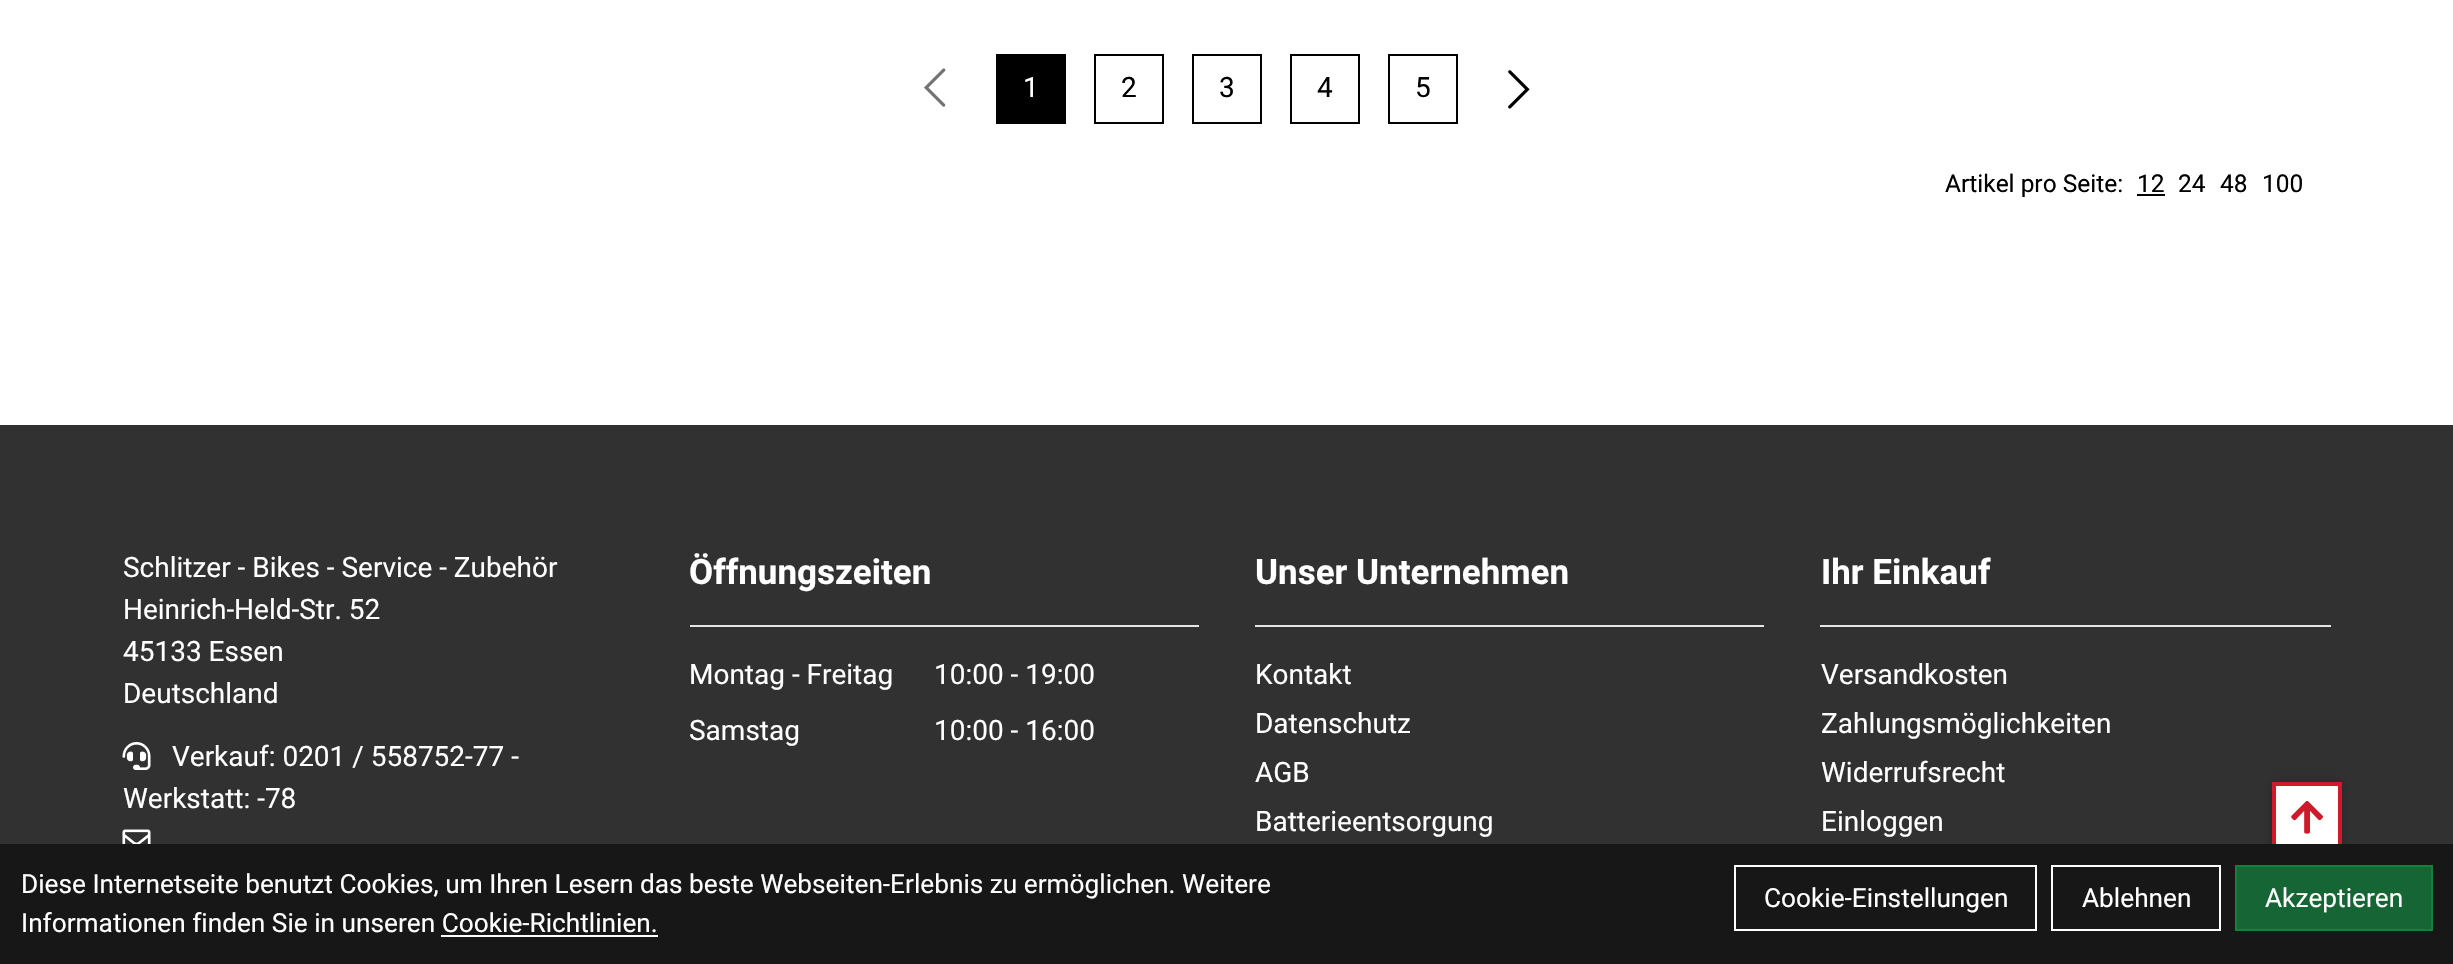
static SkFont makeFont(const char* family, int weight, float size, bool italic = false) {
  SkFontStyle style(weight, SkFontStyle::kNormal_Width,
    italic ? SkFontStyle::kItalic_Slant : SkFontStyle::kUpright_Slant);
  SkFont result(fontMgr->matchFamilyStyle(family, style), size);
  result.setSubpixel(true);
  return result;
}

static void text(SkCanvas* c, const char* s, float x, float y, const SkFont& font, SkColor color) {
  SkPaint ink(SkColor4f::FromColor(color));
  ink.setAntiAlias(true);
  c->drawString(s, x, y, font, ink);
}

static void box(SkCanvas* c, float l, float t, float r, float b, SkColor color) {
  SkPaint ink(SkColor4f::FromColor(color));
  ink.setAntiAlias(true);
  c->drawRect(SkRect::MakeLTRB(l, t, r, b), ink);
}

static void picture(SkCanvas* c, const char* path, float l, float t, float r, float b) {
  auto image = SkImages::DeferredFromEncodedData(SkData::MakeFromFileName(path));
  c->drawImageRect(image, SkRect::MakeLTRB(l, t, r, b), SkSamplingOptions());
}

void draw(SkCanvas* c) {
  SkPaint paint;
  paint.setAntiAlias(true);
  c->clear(0xffffffff);
  picture(c, "img_01.png", 924, 68, 946, 107);
  box(c, 996, 54, 1066, 124, 0xff000000);
  SkFont face1 = makeFont("Roboto", 400, 28);
  text(c, "1", 1023, 97, face1, 0xffffffff);
  paint.setStyle(SkPaint::kStroke_Style);
  paint.setStrokeWidth(2);
  paint.setColor(0xff000000);
  c->drawRect(SkRect::MakeLTRB(1095, 55, 1163, 123), paint);
  text(c, "2", 1121, 97, face1, 0xff000000);
  c->drawRect(SkRect::MakeLTRB(1193, 55, 1261, 123), paint);
  text(c, "3", 1219, 97, face1, 0xff000000);
  c->drawRect(SkRect::MakeLTRB(1291, 55, 1359, 123), paint);
  text(c, "4", 1317, 97, face1, 0xff000000);
  c->drawRect(SkRect::MakeLTRB(1389, 55, 1457, 123), paint);
  text(c, "5", 1415, 97, face1, 0xff000000);
  picture(c, "img_02.png", 1508, 70, 1530, 109);
  SkFont face2 = makeFont("Roboto", 400, 24.5f);
  text(c, "Artikel pro Seite:", 1945, 192, face2, 0xff000000);
  text(c, "12", 2137, 192, face2, 0xff000000);
  box(c, 2137, 194, 2165, 196, 0xff000000);
  text(c, "24", 2178, 192, face2, 0xff000000);
  text(c, "48", 2220, 192, face2, 0xff000000);
  text(c, "100", 2262, 192, face2, 0xff000000);
  box(c, 0, 425, 2453, 844, 0xff313131);
  text(c, "Schlitzer - Bikes - Service - Zubehör", 123, 577, face1, 0xffffffff);
  text(c, "Heinrich-Held-Str. 52", 123, 619, face1, 0xffffffff);
  text(c, "45133 Essen", 123, 661, face1, 0xffffffff);
  text(c, "Deutschland", 123, 703, face1, 0xffffffff);
  picture(c, "img_03.png", 122, 742, 151, 770);
  text(c, "Verkauf: 0201 / 558752-77 -", 172, 766, face1, 0xffffffff);
  text(c, "Werkstatt: -78", 123, 808, face1, 0xffffffff);
  picture(c, "img_04.png", 122, 829, 151, 844);
  box(c, 690, 625, 1199, 627, 0xffe5e5e5);
  SkFont face3 = makeFont("Roboto", 700, 35);
  text(c, "Öffnungszeiten", 689, 584, face3, 0xffffffff);
  text(c, "Montag - Freitag", 689, 684, face1, 0xffffffff);
  text(c, "10:00 - 19:00", 934, 684, face1, 0xffffffff);
  text(c, "Samstag", 689, 740, face1, 0xffffffff);
  text(c, "10:00 - 16:00", 934, 740, face1, 0xffffffff);
  box(c, 1255, 625, 1764, 627, 0xffe5e5e5);
  text(c, "Unser Unternehmen", 1255, 584, face3, 0xffffffff);
  text(c, "Kontakt", 1255, 684, face1, 0xffffffff);
  text(c, "Datenschutz", 1255, 733, face1, 0xffffffff);
  text(c, "AGB", 1255, 782, face1, 0xffffffff);
  text(c, "Batterieentsorgung", 1255, 831, face1, 0xffffffff);
  box(c, 1820, 625, 2331, 627, 0xffe5e5e5);
  text(c, "Ihr Einkauf", 1821, 584, face3, 0xffffffff);
  text(c, "Versandkosten", 1821, 684, face1, 0xffffffff);
  text(c, "Zahlungsmöglichkeiten", 1821, 733, face1, 0xffffffff);
  text(c, "Widerrufsrecht", 1821, 782, face1, 0xffffffff);
  text(c, "Einloggen", 1821, 831, face1, 0xffffffff);
  paint.setStyle(SkPaint::kFill_Style);
  paint.setColor(0x40000000);
  paint.setMaskFilter(SkMaskFilter::MakeBlur(kNormal_SkBlurStyle, 4.5f));
  c->drawRect(SkRect::MakeLTRB(2272, 782, 2342, 852), paint);
  paint.setMaskFilter(nullptr);
  box(c, 2276, 786, 2338, 844, 0xffffffff);
  paint.setStyle(SkPaint::kStroke_Style);
  paint.setStrokeWidth(4);
  paint.setColor(0xffce1a2b);
  c->drawRect(SkRect::MakeLTRB(2274, 784, 2340, 850), paint);
  picture(c, "img_05.png", 2291, 800, 2323, 834);
  box(c, 0, 844, 2453, 964, 0xff171717);
  SkFont face4 = makeFont("Roboto", 400, 26.25f);
  text(c, "Diese Internetseite benutzt Cookies, um Ihren Lesern das beste Webseiten-Erlebnis zu ermöglichen. Weitere", 21, 893, face4, 0xffffffff);
  text(c, "Informationen finden Sie in unseren Cookie-Richtlinien.", 21, 932, face4, 0xffffffff);
  box(c, 441, 935, 658, 937, 0xffffffff);
  paint.setStrokeWidth(2);
  paint.setColor(0xffffffff);
  c->drawRect(SkRect::MakeLTRB(1735, 866, 2036, 930), paint);
  text(c, "Cookie-Einstellungen", 1764, 907, face4, 0xffffffff);
  c->drawRect(SkRect::MakeLTRB(2052, 866, 2220, 930), paint);
  text(c, "Ablehnen", 2082, 907, face4, 0xffffffff);
  paint.setStyle(SkPaint::kFill_Style);
  paint.setColor(0xff166534);
  c->drawRect(SkRect::MakeLTRB(2236, 866, 2432, 930), paint);
  paint.setStyle(SkPaint::kStroke_Style);
  paint.setColor(0xff15803d);
  c->drawRect(SkRect::MakeLTRB(2236, 866, 2432, 930), paint);
  text(c, "Akzeptieren", 2265, 907, face4, 0xffffffff);
}
